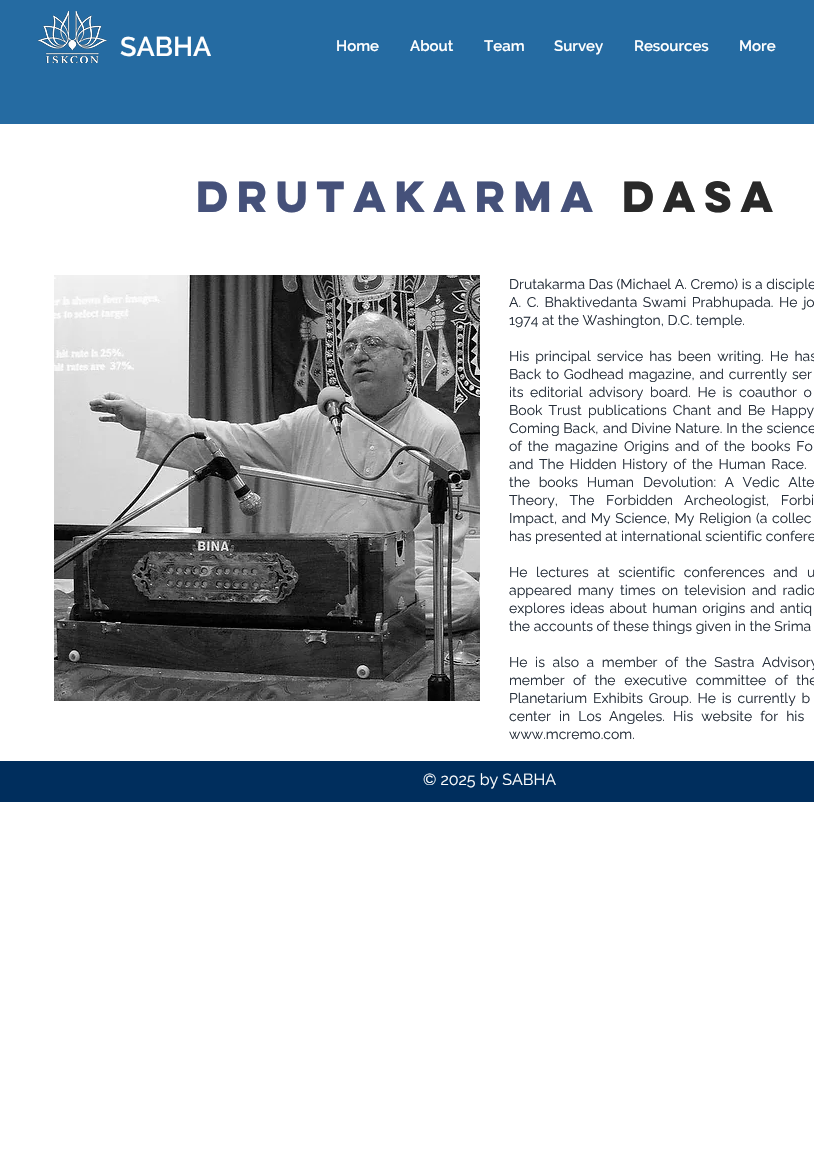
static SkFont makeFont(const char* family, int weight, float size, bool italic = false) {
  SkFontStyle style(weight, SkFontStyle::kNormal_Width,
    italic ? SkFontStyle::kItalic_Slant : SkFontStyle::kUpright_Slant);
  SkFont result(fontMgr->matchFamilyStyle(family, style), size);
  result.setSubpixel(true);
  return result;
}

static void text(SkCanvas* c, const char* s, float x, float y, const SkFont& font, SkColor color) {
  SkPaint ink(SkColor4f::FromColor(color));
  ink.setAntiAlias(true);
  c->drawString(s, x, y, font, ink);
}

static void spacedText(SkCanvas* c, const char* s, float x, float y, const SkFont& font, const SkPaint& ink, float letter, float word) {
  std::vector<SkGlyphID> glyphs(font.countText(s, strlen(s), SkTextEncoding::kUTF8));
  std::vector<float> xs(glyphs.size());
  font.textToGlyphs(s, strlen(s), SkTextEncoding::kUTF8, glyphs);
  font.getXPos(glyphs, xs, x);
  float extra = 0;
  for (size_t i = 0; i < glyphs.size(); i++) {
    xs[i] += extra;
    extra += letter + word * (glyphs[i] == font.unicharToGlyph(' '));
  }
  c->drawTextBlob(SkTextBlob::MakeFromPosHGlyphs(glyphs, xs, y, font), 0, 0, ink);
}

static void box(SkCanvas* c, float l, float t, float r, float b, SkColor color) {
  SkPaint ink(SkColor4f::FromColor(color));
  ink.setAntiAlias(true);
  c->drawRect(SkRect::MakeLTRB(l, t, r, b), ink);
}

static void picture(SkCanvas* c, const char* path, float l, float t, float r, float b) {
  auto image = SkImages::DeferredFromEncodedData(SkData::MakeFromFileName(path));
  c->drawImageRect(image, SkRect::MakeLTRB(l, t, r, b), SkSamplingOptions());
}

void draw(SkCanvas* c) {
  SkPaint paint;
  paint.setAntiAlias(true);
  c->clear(0xffffffff);
  box(c, 0, 0, 814, 124, 0xff256ba2);
  picture(c, "img_01.png", 37, 11, 107, 63);
  SkFont face1 = makeFont("Raleway", 600, 27);
  text(c, "SABHA", 120, 56, face1, 0xffffffff);
  SkFont face2 = makeFont("Raleway", 600, 15);
  text(c, "Home", 336, 51, face2, 0xffffffff);
  text(c, "About", 410, 51, face2, 0xffffffff);
  text(c, "Team", 484, 51, face2, 0xffffffff);
  text(c, "Survey", 554, 51, face2, 0xffffffff);
  text(c, "Resources", 634, 51, face2, 0xffffffff);
  text(c, "More", 739, 51, face2, 0xffffffff);
  SkFont face3 = makeFont("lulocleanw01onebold", 700, 39);
  text(c, "Drutakarma", 196, 212, face3, 0xff45517a);
  text(c, "dasa", 622, 212, face3, 0xff292929);
  picture(c, "img_02.png", 54, 275, 480, 701);
  SkFont face4 = makeFont("Raleway", 400, 14);
  text(c, "Drutakarma Das (Michael A. Cremo) is a disciple", 509, 289, face4, 0xff252e39);
  paint.setColor(0xff252e39);
  spacedText(c, "A. C. Bhaktivedanta Swami Prabhupada. He jo", 509, 307, face4, paint, 0, 2);
  text(c, "1974 at the Washington, D.C. temple.", 509, 325, face4, 0xff252e39);
  spacedText(c, "His principal service has been writing. He has", 509, 361, face4, paint, 0, 2.5f);
  text(c, "Back", 509, 379, face4, 0xff252e39);
  spacedText(c, "to Godhead magazine, and currently ser", 546, 379, face4, paint, 0, 1.25f);
  spacedText(c, "its editorial", 509, 397, face4, paint, 0, 3);
  spacedText(c, "advisory board. He is coauthor o", 589, 397, face4, paint, 0, 3);
  spacedText(c, "Book Trust", 509, 415, face4, paint, 0, 2.5f);
  spacedText(c, "publications Chant and Be Happy", 588, 415, face4, paint, 0, 2.5f);
  text(c, "Coming Back,", 509, 433, face4, 0xff252e39);
  spacedText(c, "and Divine Nature. In the science", 603, 433, face4, paint, 0, 0.25f);
  spacedText(c, "of the magazine", 509, 451, face4, paint, 0, 2.25f);
  spacedText(c, "Origins and of the books Fo", 624, 451, face4, paint, 0, 2.25f);
  spacedText(c, "and The Hidden", 509, 469, face4, paint, 0, 2);
  spacedText(c, "History of the Human Race.", 622, 469, face4, paint, 0, 2);
  spacedText(c, "the books Human", 509, 487, face4, paint, 0, 5);
  spacedText(c, "Devolution: A Vedic Alte", 643, 487, face4, paint, 0, 5);
  spacedText(c, "Theory, The Forbidden", 509, 505, face4, paint, 0, 8);
  spacedText(c, "Archeologist, Forbi", 684, 505, face4, paint, 0, 8);
  spacedText(c, "Impact, and My Science, My", 509, 523, face4, paint, 0, 1);
  spacedText(c, "Religion (a collec", 699, 523, face4, paint, 0, 1);
  text(c, "has presented at international scientific confere", 509, 541, face4, 0xff252e39);
  spacedText(c, "He lectures at scientific conferences and", 509, 577, face4, paint, 0, 5);
  spacedText(c, "u", 807, 577, face4, paint, 0, 5);
  spacedText(c, "appeared many times on television and radio", 509, 595, face4, paint, 0, 2.5f);
  spacedText(c, "explores ideas about human origins and antiq", 509, 613, face4, paint, 0, 1.5f);
  text(c, "the accounts of these things given in the Srima", 509, 631, face4, 0xff252e39);
  spacedText(c, "He is also a member of the Sastra Advisory", 509, 667, face4, paint, 0, 4);
  text(c, "member", 509, 685, face4, 0xff252e39);
  spacedText(c, "of the executive committee of the", 573, 685, face4, paint, 0, 5);
  text(c, "Planetarium", 509, 703, face4, 0xff252e39);
  spacedText(c, "Exhibits Group. He is currently b", 593, 703, face4, paint, 0, 2.25f);
  spacedText(c, "center in Los", 509, 721, face4, paint, 0, 4.5f);
  spacedText(c, "Angeles. His website for his", 609, 721, face4, paint, 0, 4.5f);
  text(c, "www.mcremo.com.", 509, 739, face4, 0xff252e39);
  box(c, 0, 761, 814, 802, 0xff002e5d);
  SkFont face5 = makeFont("Raleway", 400, 16);
  text(c, "© 2025 by SABHA", 423, 785, face5, 0xffffffff);
}
